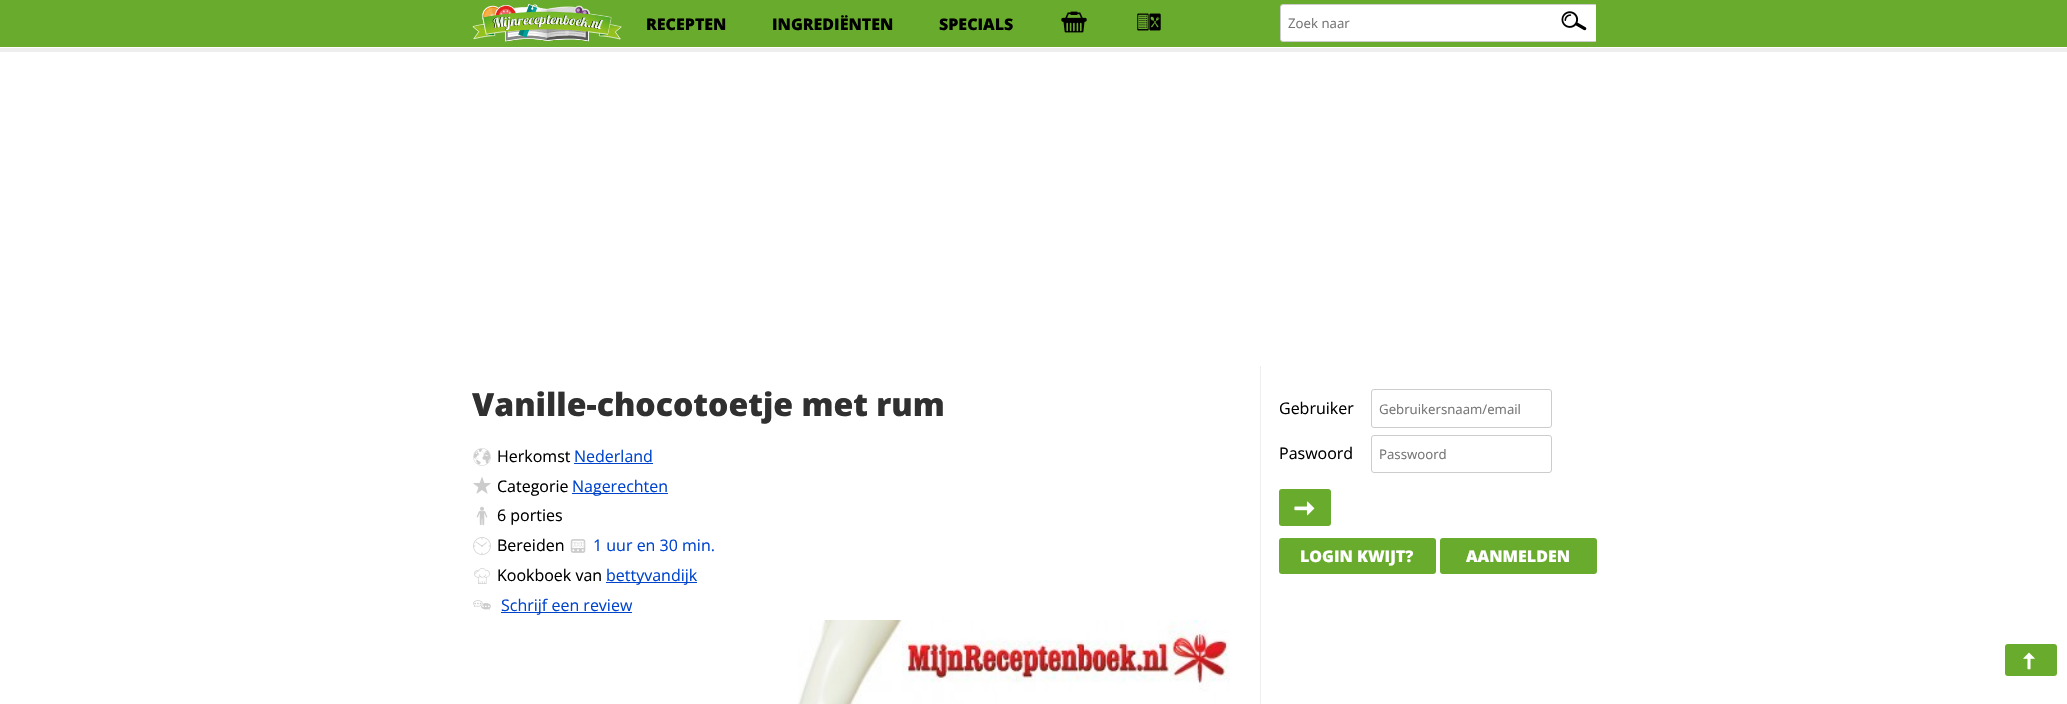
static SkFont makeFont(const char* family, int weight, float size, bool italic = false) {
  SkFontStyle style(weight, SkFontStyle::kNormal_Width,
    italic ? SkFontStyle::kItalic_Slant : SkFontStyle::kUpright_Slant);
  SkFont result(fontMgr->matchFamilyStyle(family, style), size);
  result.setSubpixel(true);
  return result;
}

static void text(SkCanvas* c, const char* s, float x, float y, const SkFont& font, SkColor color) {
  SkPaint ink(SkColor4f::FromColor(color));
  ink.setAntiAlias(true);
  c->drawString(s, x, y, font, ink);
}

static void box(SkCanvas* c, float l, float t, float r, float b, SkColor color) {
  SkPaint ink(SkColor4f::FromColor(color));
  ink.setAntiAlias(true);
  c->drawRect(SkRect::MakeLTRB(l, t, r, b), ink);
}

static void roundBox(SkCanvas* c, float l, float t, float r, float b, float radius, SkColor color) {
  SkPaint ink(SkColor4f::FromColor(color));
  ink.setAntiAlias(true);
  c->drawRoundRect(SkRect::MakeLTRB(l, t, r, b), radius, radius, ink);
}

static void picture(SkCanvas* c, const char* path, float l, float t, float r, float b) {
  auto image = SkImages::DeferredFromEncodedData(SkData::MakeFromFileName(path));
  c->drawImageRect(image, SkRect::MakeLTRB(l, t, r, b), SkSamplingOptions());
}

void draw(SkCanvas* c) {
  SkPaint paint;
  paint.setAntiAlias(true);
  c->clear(0xffffffff);
  box(c, 0, 0, 2067, 47, 0xff69ab2c);
  picture(c, "img_01.png", 472, 4, 622, 42);
  SkFont face1 = makeFont("Open Sans", 800, 16);
  text(c, "RECEPTEN", 646, 30, face1, 0xff000000);
  text(c, "INGREDIËNTEN", 772, 30, face1, 0xff000000);
  text(c, "SPECIALS", 939, 30, face1, 0xff000000);
  picture(c, "img_02.png", 1061, 11, 1087, 33);
  picture(c, "img_03.png", 1137, 13, 1161, 31);
  c->save();
  c->clipRect(SkRect::MakeLTRB(1280, 0, 1596, 45));
  paint.setColor(0xffffffff);
  c->drawRoundRect(SkRect::MakeLTRB(1280.5f, 4.5f, 1597.5f, 41.5f), 2.5f, 2.5f, paint);
  paint.setStyle(SkPaint::kStroke_Style);
  paint.setStrokeWidth(1);
  paint.setColor(0xffcccccc);
  c->drawRoundRect(SkRect::MakeLTRB(1280.5f, 4.5f, 1597.5f, 41.5f), 2.5f, 2.5f, paint);
  c->restore();
  SkFont face2 = makeFont("Open Sans", 400, 13.25f);
  text(c, "Zoek naar", 1288, 28, face2, 0xff757575);
  picture(c, "img_04.png", 1561, 11, 1587, 31);
  box(c, 0, 48, 2067, 52, 0xffeeeeee);
  SkFont face3 = makeFont("Open Sans", 800, 32);
  text(c, "Vanille-chocotoetje met rum", 472, 416, face3, 0xff303030);
  picture(c, "img_05.png", 473, 448, 491, 466);
  SkFont face4 = makeFont("Open Sans", 400, 16);
  text(c, "Herkomst", 497, 462, face4, 0xff000000);
  text(c, "Nederland", 574, 462, face4, 0xff0044cc);
  box(c, 574, 463, 653, 464, 0xff0044cc);
  picture(c, "img_06.png", 473, 477, 491, 494);
  text(c, "Categorie", 497, 492, face4, 0xff000000);
  box(c, 572, 493, 668, 494, 0xff0044cc);
  text(c, "Nagerechten", 572, 492, face4, 0xff0044cc);
  picture(c, "img_07.png", 476, 506, 488, 526);
  text(c, "6 porties", 497, 521, face4, 0xff000000);
  picture(c, "img_08.png", 473, 537, 491, 555);
  text(c, "Bereiden", 497, 551, face4, 0xff000000);
  picture(c, "img_09.png", 570, 539, 586, 553);
  text(c, "1 uur en 30 min.", 593, 551, face4, 0xff0044cc);
  picture(c, "img_10.png", 474, 568, 490, 584);
  text(c, "Kookboek van", 497, 581, face4, 0xff000000);
  box(c, 606, 582, 697, 583, 0xff0044cc);
  text(c, "bettyvandijk", 606, 581, face4, 0xff0044cc);
  picture(c, "img_11.png", 473, 600, 491, 610);
  box(c, 501, 612, 632, 613, 0xff0044cc);
  text(c, "Schrijf een review", 501, 611, face4, 0xff0044cc);
  picture(c, "img_12.png", 798, 620, 1230, 704);
  box(c, 1260, 366, 1261, 704, 0xffeeeeee);
  text(c, "Gebruiker", 1279, 414, face4, 0xff000000);
  c->drawRoundRect(SkRect::MakeLTRB(1371.5f, 389.5f, 1551.5f, 427.5f), 2.5f, 2.5f, paint);
  text(c, "Gebruikersnaam/email", 1379, 414, face2, 0xff757575);
  text(c, "Paswoord", 1279, 459, face4, 0xff000000);
  c->drawRoundRect(SkRect::MakeLTRB(1371.5f, 435.5f, 1551.5f, 472.5f), 2.5f, 2.5f, paint);
  text(c, "Passwoord", 1379, 459, face2, 0xff757575);
  roundBox(c, 1279, 489, 1331, 526, 3, 0xff69ab2c);
  picture(c, "img_13.png", 1294, 501, 1315, 516);
  roundBox(c, 1279, 538, 1436, 574, 3, 0xff69ab2c);
  text(c, "LOGIN KWIJT?", 1300, 562, face1, 0xffffffff);
  roundBox(c, 1440, 538, 1597, 574, 3, 0xff69ab2c);
  text(c, "AANMELDEN", 1466, 562, face1, 0xffffffff);
  roundBox(c, 2005, 644, 2057, 676, 3, 0xff69ab2c);
  picture(c, "img_14.png", 2023, 652, 2035, 670);
}
